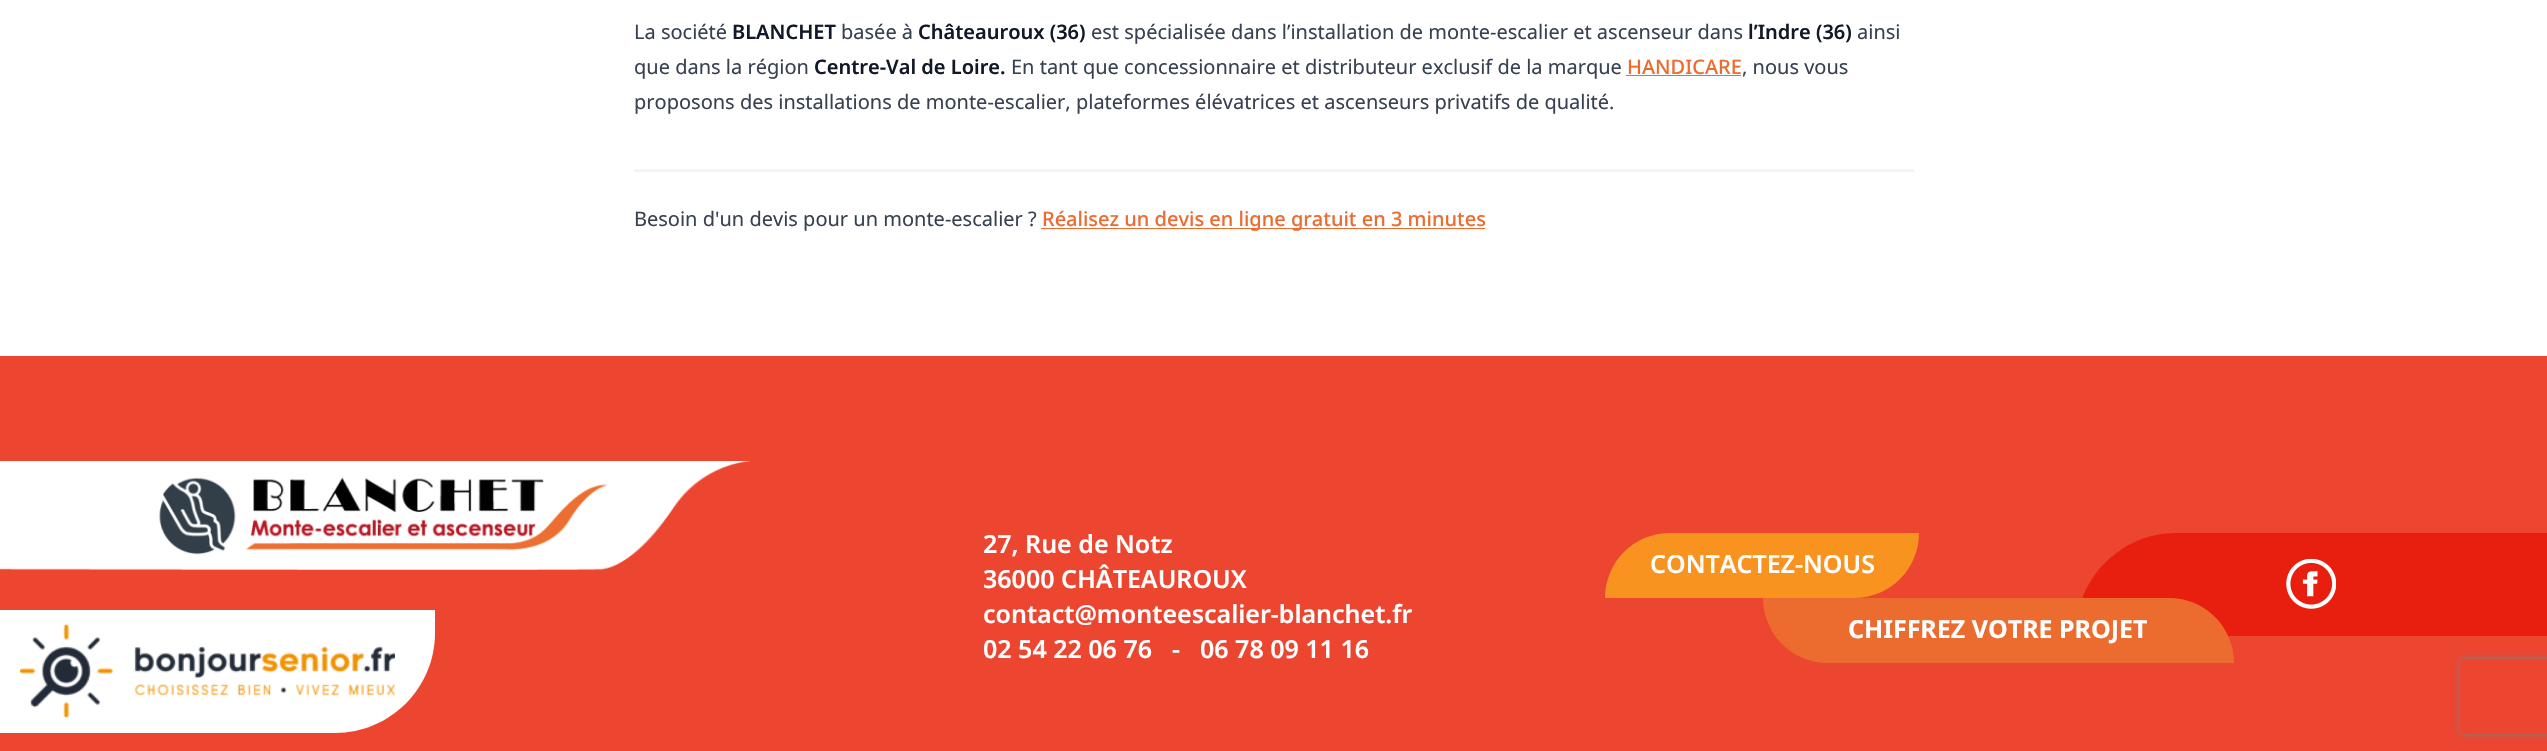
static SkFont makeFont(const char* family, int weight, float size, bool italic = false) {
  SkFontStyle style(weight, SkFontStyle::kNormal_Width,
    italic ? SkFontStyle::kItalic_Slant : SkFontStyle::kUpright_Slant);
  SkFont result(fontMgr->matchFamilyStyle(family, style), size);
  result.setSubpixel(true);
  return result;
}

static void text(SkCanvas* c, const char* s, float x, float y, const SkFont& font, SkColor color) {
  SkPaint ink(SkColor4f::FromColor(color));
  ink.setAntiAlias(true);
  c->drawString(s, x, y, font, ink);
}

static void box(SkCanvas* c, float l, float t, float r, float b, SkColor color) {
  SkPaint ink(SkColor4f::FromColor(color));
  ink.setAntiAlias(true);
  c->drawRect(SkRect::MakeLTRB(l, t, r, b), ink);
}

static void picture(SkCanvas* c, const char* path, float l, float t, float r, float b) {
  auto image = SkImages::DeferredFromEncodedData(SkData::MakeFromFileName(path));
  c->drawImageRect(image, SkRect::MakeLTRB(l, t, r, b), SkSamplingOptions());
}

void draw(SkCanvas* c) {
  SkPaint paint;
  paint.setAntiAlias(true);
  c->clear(0xffffffff);
  SkFont face1 = makeFont("Noto Sans", 400, 20);
  text(c, "La société", 634, 39, face1, 0xff374151);
  SkFont face2 = makeFont("Noto Sans", 600, 20);
  text(c, "BLANCHET", 732, 39, face2, 0xff111827);
  text(c, "basée à", 841, 39, face1, 0xff374151);
  text(c, "Châteauroux (36)", 918, 39, face2, 0xff111827);
  text(c, "est spécialisée dans l’installation de monte-escalier et ascenseur dans", 1091, 39, face1, 0xff374151);
  text(c, "l’Indre (36)", 1748, 39, face2, 0xff111827);
  text(c, "ainsi", 1857, 39, face1, 0xff374151);
  text(c, "que dans la région", 634, 74, face1, 0xff374151);
  text(c, "Centre-Val de Loire.", 814, 74, face2, 0xff111827);
  text(c, "En tant que concessionnaire et distributeur exclusif de la marque", 1011, 74, face1, 0xff374151);
  SkFont face3 = makeFont("Noto Sans", 500, 20);
  text(c, "HANDICARE", 1627, 74, face3, 0xffec6c30);
  box(c, 1626, 75, 1741, 76, 0xffec6c30);
  text(c, ", nous vous", 1742, 74, face1, 0xff374151);
  text(c, "proposons des installations de monte-escalier, plateformes élévatrices et ascenseurs privatifs de qualité.", 634, 109, face1, 0xff374151);
  box(c, 634, 169, 1914, 172, 0xfff4f4f4);
  text(c, "Besoin d'un devis pour un monte-escalier ?", 634, 226, face1, 0xff374151);
  box(c, 1041, 228, 1485, 229, 0xffec6c30);
  text(c, "Réalisez un devis en ligne gratuit en 3 minutes", 1042, 226, face3, 0xffec6c30);
  box(c, 0, 356, 2547, 751, 0xffec4530);
  picture(c, "img_01.png", 0, 461, 750, 570);
  paint.setColor(0xffffffff);
  c->drawPath(SkPathBuilder().moveTo(0, 610).lineTo(435, 610).lineTo(435, 633).cubicTo(435, 688, 390, 733, 335, 733).lineTo(0, 733).close().detach(), paint);
  picture(c, "img_02.png", 20, 624, 395, 718);
  SkFont face4 = makeFont("Noto Sans", 600, 25);
  text(c, "27, Rue de Notz", 983, 553, face4, 0xffffffff);
  text(c, "36000 CHÂTEAUROUX", 983, 588, face4, 0xffffffff);
  text(c, "contact@monteescalier-blanchet.fr", 983, 623, face4, 0xffffffff);
  text(c, "02 54 22 06 76", 983, 658, face4, 0xffffffff);
  text(c, "-", 1172, 658, face4, 0xffffffff);
  text(c, "06 78 09 11 16", 1200, 658, face4, 0xffffffff);
  paint.setColor(0xfff7931e);
  c->drawPath(SkPathBuilder().moveTo(1670, 533).lineTo(1919, 533).cubicTo(1919, 569, 1890, 598, 1854, 598).lineTo(1605, 598).cubicTo(1605, 562, 1634, 533, 1670, 533).close().detach(), paint);
  text(c, "CONTACTEZ-NOUS", 1650, 573, face4, 0xffffffff);
  paint.setColor(0xffe81e0f);
  c->drawPath(SkPathBuilder().moveTo(2176, 533).lineTo(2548, 533).lineTo(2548, 636).lineTo(2076, 636).lineTo(2076, 633).cubicTo(2076, 578, 2121, 533, 2176, 533).close().detach(), paint);
  picture(c, "img_03.png", 2286, 559, 2336, 609);
  paint.setColor(0xffec6c30);
  c->drawPath(SkPathBuilder().moveTo(1763, 598).lineTo(2169, 598).cubicTo(2205, 598, 2234, 627, 2234, 663).lineTo(1828, 663).cubicTo(1792, 663, 1763, 634, 1763, 598).close().detach(), paint);
  SkFont face5 = makeFont("Noto Sans", 700, 25);
  text(c, "CHIFFREZ VOTRE PROJET", 1848, 638, face5, 0xffffffff);
  c->save();
  c->clipPath(SkPathBuilder(SkPathFillType::kEvenOdd).moveTo(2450, 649).lineTo(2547, 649).lineTo(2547, 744).lineTo(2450, 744).close().moveTo(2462.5f, 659).lineTo(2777.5f, 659).cubicTo(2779, 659, 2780, 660, 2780, 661.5f).lineTo(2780, 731.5f).cubicTo(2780, 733, 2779, 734, 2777.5f, 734).lineTo(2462.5f, 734).cubicTo(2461, 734, 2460, 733, 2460, 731.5f).lineTo(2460, 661.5f).cubicTo(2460, 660, 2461, 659, 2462.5f, 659).close().detach(), true);
  paint.setColor(0xff808080);
  paint.setMaskFilter(SkMaskFilter::MakeBlur(kNormal_SkBlurStyle, 3));
  c->drawRoundRect(SkRect::MakeLTRB(2460, 659, 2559, 734), 2.5f, 2.5f, paint);
  paint.setMaskFilter(nullptr);
  c->restore();
}
